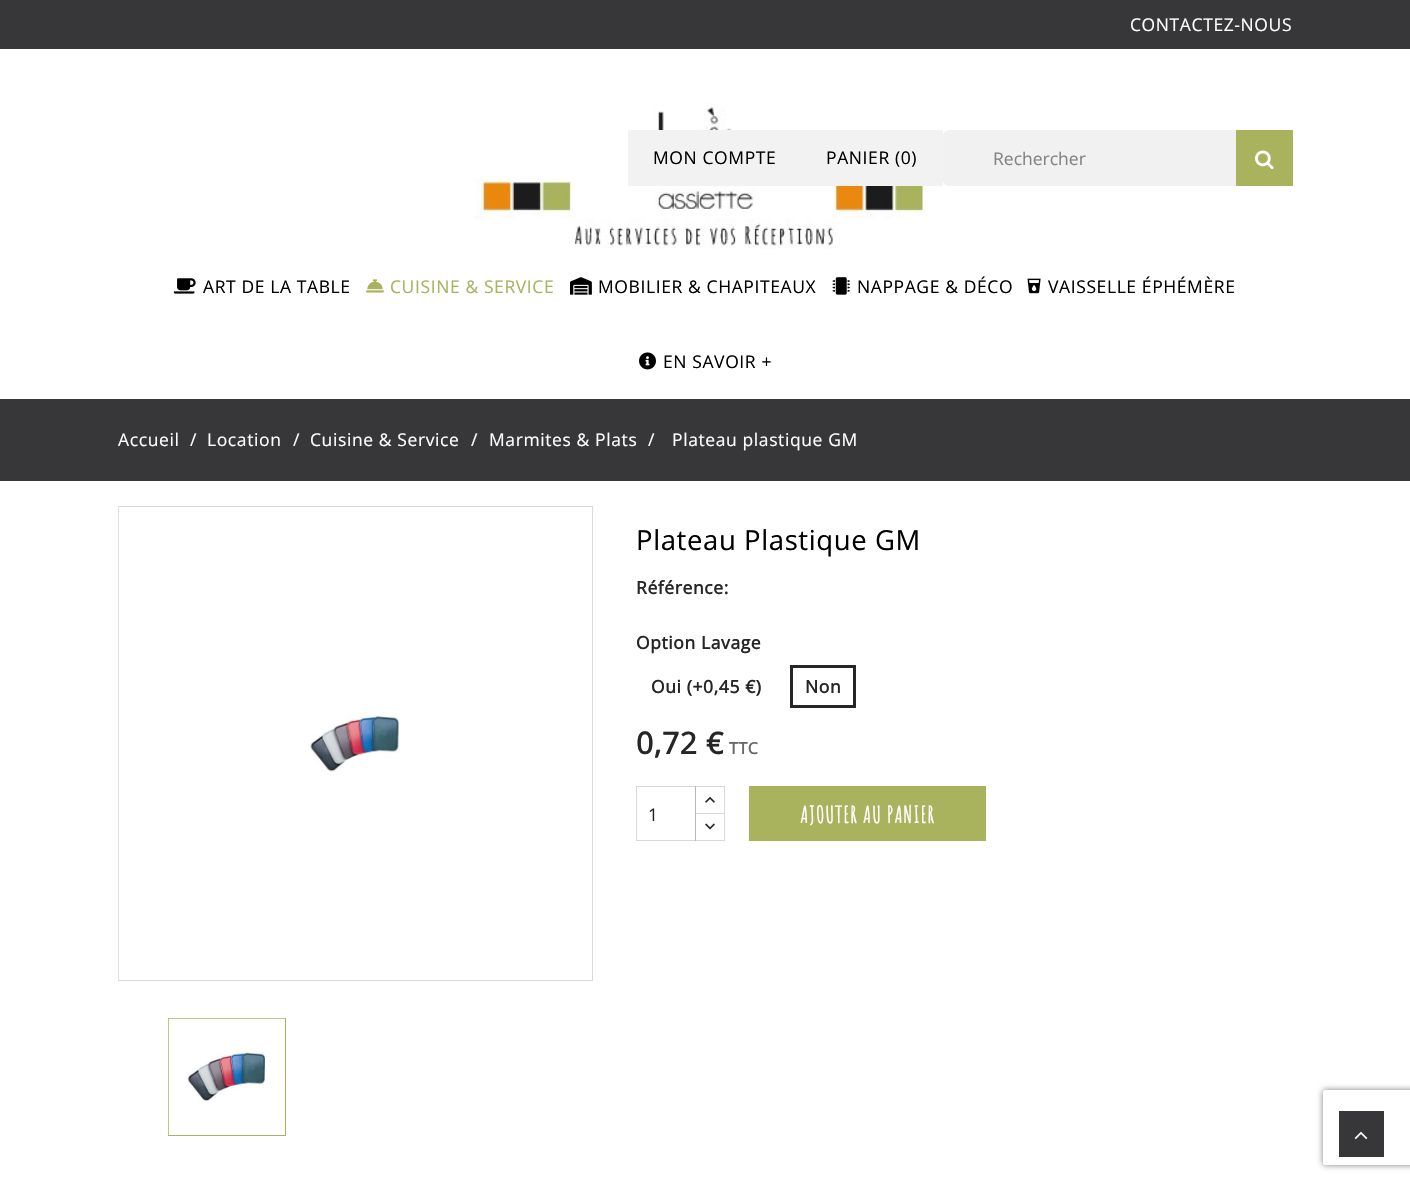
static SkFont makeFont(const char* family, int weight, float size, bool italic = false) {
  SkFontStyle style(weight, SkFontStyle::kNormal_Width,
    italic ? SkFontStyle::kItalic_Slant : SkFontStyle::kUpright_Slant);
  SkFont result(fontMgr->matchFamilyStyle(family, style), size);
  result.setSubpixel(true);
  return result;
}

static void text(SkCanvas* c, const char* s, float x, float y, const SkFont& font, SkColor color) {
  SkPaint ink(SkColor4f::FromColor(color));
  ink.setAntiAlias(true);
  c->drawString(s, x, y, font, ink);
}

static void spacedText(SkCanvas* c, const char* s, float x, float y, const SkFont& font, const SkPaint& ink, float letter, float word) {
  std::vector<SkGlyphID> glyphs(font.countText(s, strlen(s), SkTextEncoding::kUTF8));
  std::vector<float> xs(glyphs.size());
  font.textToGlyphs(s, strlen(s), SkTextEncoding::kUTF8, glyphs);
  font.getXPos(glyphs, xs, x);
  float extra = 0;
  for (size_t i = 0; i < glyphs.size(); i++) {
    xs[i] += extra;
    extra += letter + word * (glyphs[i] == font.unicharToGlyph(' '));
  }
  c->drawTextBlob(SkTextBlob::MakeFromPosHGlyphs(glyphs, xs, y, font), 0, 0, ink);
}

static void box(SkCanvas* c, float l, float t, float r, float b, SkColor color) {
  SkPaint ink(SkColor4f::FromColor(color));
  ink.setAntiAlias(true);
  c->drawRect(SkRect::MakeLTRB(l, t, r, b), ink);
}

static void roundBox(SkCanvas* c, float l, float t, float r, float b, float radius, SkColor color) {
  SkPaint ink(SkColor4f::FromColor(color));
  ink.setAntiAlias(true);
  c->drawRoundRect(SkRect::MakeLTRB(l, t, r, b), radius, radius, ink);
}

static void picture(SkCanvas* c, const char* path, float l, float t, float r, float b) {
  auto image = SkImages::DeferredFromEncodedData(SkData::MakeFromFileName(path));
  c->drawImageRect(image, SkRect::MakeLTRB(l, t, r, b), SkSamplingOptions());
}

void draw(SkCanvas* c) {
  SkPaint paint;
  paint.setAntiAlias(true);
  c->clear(0xffffffff);
  box(c, 0, 0, 1410, 49, 0xff373639);
  SkFont face1 = makeFont("Open Sans", 400, 17.5f);
  paint.setColor(0xffffffff);
  spacedText(c, "CONTACTEZ-NOUS", 1130, 31, face1, paint, 0.6f, 0);
  picture(c, "img_01.png", 475, 102, 932, 249);
  box(c, 628, 130, 943, 186, 0xfff2f2f2);
  paint.setColor(0xff000000);
  spacedText(c, "MON COMPTE", 653, 164, face1, paint, 0.6f, 0);
  spacedText(c, "PANIER (0)", 826, 164, face1, paint, 0.6f, 0);
  roundBox(c, 943, 130, 1293, 186, 6, 0xfff1f1f1);
  text(c, "Rechercher", 993, 165, face1, 0xff838383);
  box(c, 1236, 130, 1293, 186, 0xffa9b35d);
  picture(c, "img_02.png", 1255, 150, 1274, 170);
  picture(c, "img_03.png", 173, 278, 196, 294);
  spacedText(c, "ART DE LA TABLE", 203, 293, face1, paint, 0.6f, 0);
  picture(c, "img_04.png", 366, 279, 384, 293);
  paint.setColor(0xffa9b35d);
  spacedText(c, "CUISINE & SERVICE", 390, 293, face1, paint, 0.6f, 0);
  picture(c, "img_05.png", 570, 277, 592, 295);
  paint.setColor(0xff000000);
  spacedText(c, "MOBILIER & CHAPITEAUX", 598, 293, face1, paint, 0.6f, 0);
  picture(c, "img_06.png", 832, 277, 850, 295);
  spacedText(c, "NAPPAGE & DÉCO", 857, 293, face1, paint, 0.6f, 0);
  picture(c, "img_07.png", 1027, 278, 1041, 294);
  spacedText(c, "VAISSELLE ÉPHÉMÈRE", 1048, 293, face1, paint, 0.6f, 0);
  picture(c, "img_08.png", 639, 352, 656, 370);
  spacedText(c, "EN SAVOIR +", 663, 368, face1, paint, 0.6f, 0);
  box(c, 0, 399, 1410, 481, 0xff373639);
  paint.setColor(0xffffffff);
  spacedText(c, "Accueil", 118, 446, face1, paint, 0.6f, 0);
  spacedText(c, "/", 190, 446, face1, paint, 0.6f, 0);
  spacedText(c, "Location", 207, 446, face1, paint, 0.6f, 0);
  spacedText(c, "/", 293, 446, face1, paint, 0.6f, 0);
  spacedText(c, "Cuisine & Service", 310, 446, face1, paint, 0.6f, 0);
  spacedText(c, "/", 471, 446, face1, paint, 0.6f, 0);
  spacedText(c, "Marmites & Plats", 489, 446, face1, paint, 0.6f, 0);
  spacedText(c, "/", 648, 446, face1, paint, 0.6f, 0);
  spacedText(c, "Plateau plastique GM", 672, 446, face1, paint, 0.6f, 0);
  paint.setStyle(SkPaint::kStroke_Style);
  paint.setStrokeWidth(1);
  paint.setColor(0xffd9d9d9);
  c->drawRect(SkRect::MakeLTRB(118.5f, 506.5f, 592.5f, 980.5f), paint);
  picture(c, "img_09.png", 118, 507, 399, 980);
  paint.setColor(0xffa9b35d);
  c->drawRect(SkRect::MakeLTRB(168.5f, 1018.5f, 285.5f, 1135.5f), paint);
  picture(c, "img_10.png", 168, 1018, 285, 1135);
  SkFont face2 = makeFont("Open Sans", 400, 27.5f);
  paint.setStyle(SkPaint::kFill_Style);
  paint.setColor(0xff000000);
  spacedText(c, "Plateau Plastique GM", 636, 550, face2, paint, 0.6f, 0);
  SkFont face3 = makeFont("Open Sans", 700, 17.5f);
  paint.setColor(0xff262626);
  spacedText(c, "Référence:", 636, 594, face3, paint, 0.6f, 0);
  spacedText(c, "Option Lavage", 636, 649, face3, paint, 0.6f, 0);
  spacedText(c, "Oui (+0,45 €)", 651, 693, face3, paint, 0.6f, 0);
  paint.setStyle(SkPaint::kStroke_Style);
  paint.setStrokeWidth(3);
  c->drawRect(SkRect::MakeLTRB(791.5f, 666.5f, 854.5f, 706.5f), paint);
  paint.setStyle(SkPaint::kFill_Style);
  spacedText(c, "Non", 805, 693, face3, paint, 0.6f, 0);
  SkFont face4 = makeFont("Open Sans", 700, 30);
  spacedText(c, "0,72 €", 636, 754, face4, paint, 0.6f, 0);
  SkFont face5 = makeFont("Open Sans", 700, 16);
  paint.setColor(0xff666666);
  spacedText(c, "TTC", 729, 754, face5, paint, 0.6f, 0);
  paint.setStyle(SkPaint::kStroke_Style);
  paint.setStrokeWidth(1);
  paint.setColor(0xffd9d9d9);
  c->drawRect(SkRect::MakeLTRB(695.5f, 786.5f, 724.5f, 814.5f), paint);
  box(c, 696, 814, 724, 815, 0xffffffff);
  c->drawRect(SkRect::MakeLTRB(695.5f, 813.5f, 724.5f, 840.5f), paint);
  paint.setColor(0x26000000);
  c->drawRect(SkRect::MakeLTRB(636.5f, 786.5f, 695.5f, 840.5f), paint);
  text(c, "1", 648, 821, face1, 0xff262626);
  picture(c, "img_11.png", 705, 796, 715, 803);
  picture(c, "img_12.png", 705, 823, 715, 830);
  box(c, 749, 786, 986, 841, 0xffa9b35d);
  SkFont face6 = makeFont("Amatic SC", 700, 22.5f);
  paint.setStyle(SkPaint::kFill_Style);
  paint.setColor(0xffffffff);
  spacedText(c, "AJOUTER AU PANIER", 800, 823, face6, paint, 1.25f, 0);
  c->save();
  c->clipPath(SkPathBuilder(SkPathFillType::kEvenOdd).moveTo(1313, 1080).lineTo(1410, 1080).lineTo(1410, 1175).lineTo(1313, 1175).close().moveTo(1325.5f, 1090).lineTo(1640.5f, 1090).cubicTo(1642, 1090, 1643, 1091, 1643, 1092.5f).lineTo(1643, 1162.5f).cubicTo(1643, 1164, 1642, 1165, 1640.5f, 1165).lineTo(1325.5f, 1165).cubicTo(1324, 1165, 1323, 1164, 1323, 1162.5f).lineTo(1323, 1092.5f).cubicTo(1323, 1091, 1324, 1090, 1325.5f, 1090).close().detach(), true);
  paint.setColor(0xff808080);
  paint.setMaskFilter(SkMaskFilter::MakeBlur(kNormal_SkBlurStyle, 3));
  c->drawRoundRect(SkRect::MakeLTRB(1323, 1090, 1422, 1165), 2.5f, 2.5f, paint);
  paint.setMaskFilter(nullptr);
  c->restore();
  box(c, 1339, 1111, 1384, 1157, 0xff373639);
  picture(c, "img_13.png", 1354, 1131, 1368, 1140);
}
